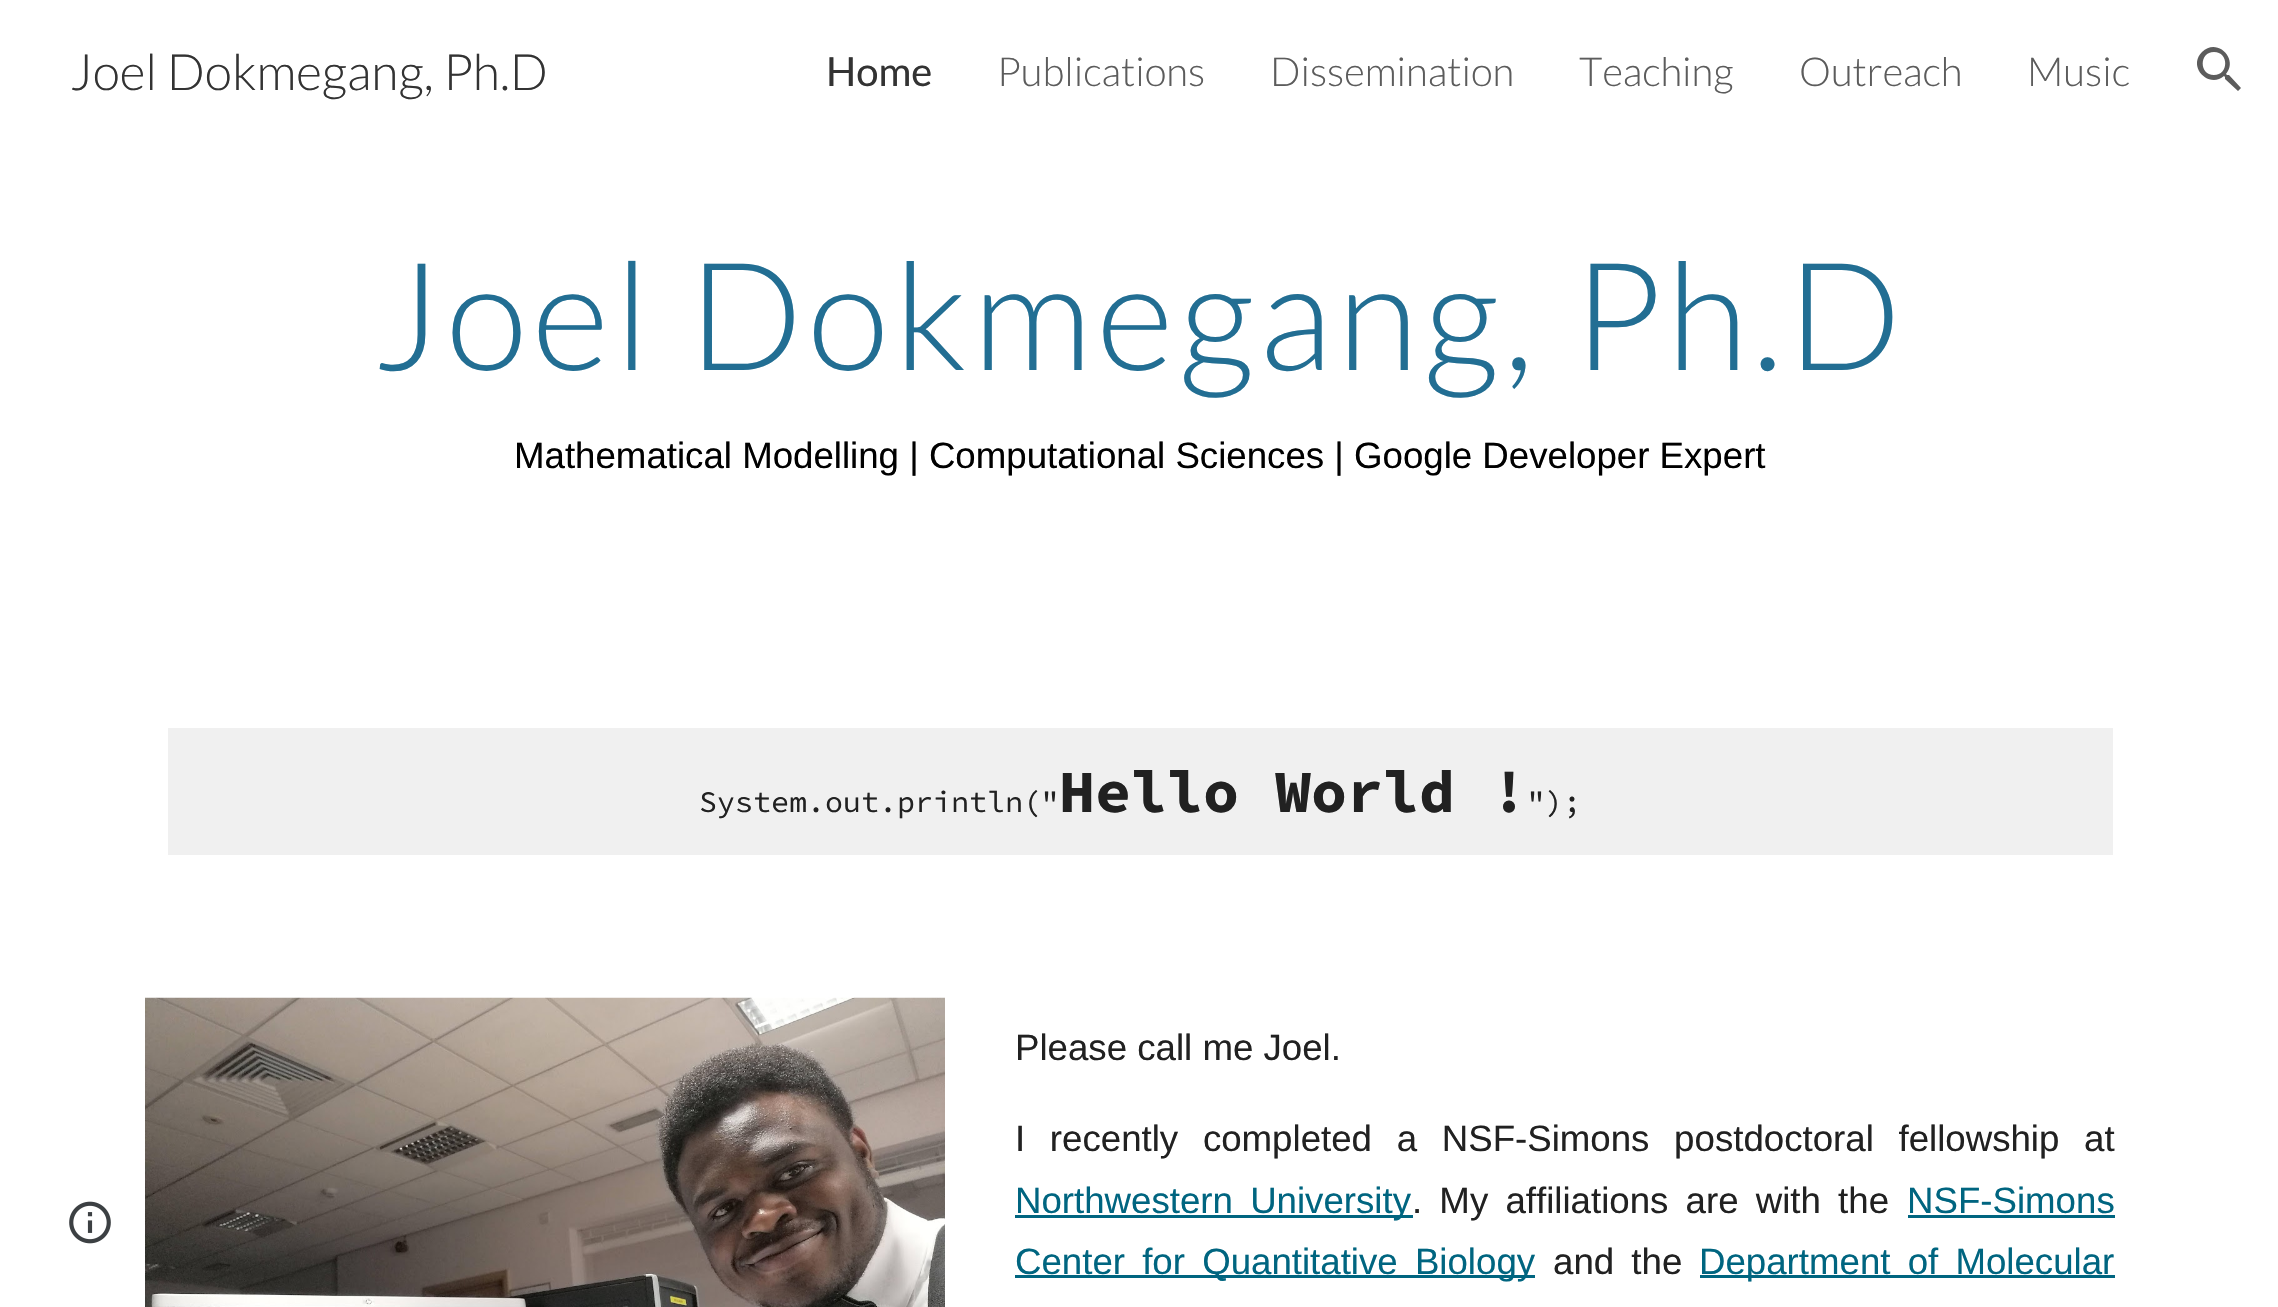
static SkFont makeFont(const char* family, int weight, float size, bool italic = false) {
  SkFontStyle style(weight, SkFontStyle::kNormal_Width,
    italic ? SkFontStyle::kItalic_Slant : SkFontStyle::kUpright_Slant);
  SkFont result(fontMgr->matchFamilyStyle(family, style), size);
  result.setSubpixel(true);
  return result;
}

static void text(SkCanvas* c, const char* s, float x, float y, const SkFont& font, SkColor color) {
  SkPaint ink(SkColor4f::FromColor(color));
  ink.setAntiAlias(true);
  c->drawString(s, x, y, font, ink);
}

static void spacedText(SkCanvas* c, const char* s, float x, float y, const SkFont& font, const SkPaint& ink, float letter, float word) {
  std::vector<SkGlyphID> glyphs(font.countText(s, strlen(s), SkTextEncoding::kUTF8));
  std::vector<float> xs(glyphs.size());
  font.textToGlyphs(s, strlen(s), SkTextEncoding::kUTF8, glyphs);
  font.getXPos(glyphs, xs, x);
  float extra = 0;
  for (size_t i = 0; i < glyphs.size(); i++) {
    xs[i] += extra;
    extra += letter + word * (glyphs[i] == font.unicharToGlyph(' '));
  }
  c->drawTextBlob(SkTextBlob::MakeFromPosHGlyphs(glyphs, xs, y, font), 0, 0, ink);
}

static void box(SkCanvas* c, float l, float t, float r, float b, SkColor color) {
  SkPaint ink(SkColor4f::FromColor(color));
  ink.setAntiAlias(true);
  c->drawRect(SkRect::MakeLTRB(l, t, r, b), ink);
}

static void picture(SkCanvas* c, const char* path, float l, float t, float r, float b) {
  auto image = SkImages::DeferredFromEncodedData(SkData::MakeFromFileName(path));
  c->drawImageRect(image, SkRect::MakeLTRB(l, t, r, b), SkSamplingOptions());
}

void draw(SkCanvas* c) {
  SkPaint paint;
  paint.setAntiAlias(true);
  c->clear(0xffffffff);
  SkFont face1 = makeFont("Lato", 300, 50);
  text(c, "Joel Dokmegang, Ph.D", 70, 90, face1, 0xff333333);
  SkFont face2 = makeFont("Lato", 400, 40);
  text(c, "Home", 826, 86, face2, 0xff333333);
  SkFont face3 = makeFont("Lato", 300, 40);
  text(c, "Publications", 997, 86, face3, 0xff5c5c5c);
  text(c, "Dissemination", 1270, 86, face3, 0xff5c5c5c);
  text(c, "Teaching", 1579, 86, face3, 0xff5c5c5c);
  text(c, "Outreach", 1799, 86, face3, 0xff5c5c5c);
  text(c, "Music", 2027, 86, face3, 0xff5c5c5c);
  paint.setColor(0xff5c5c5c);
  c->drawPath(SkPathBuilder().moveTo(2229, 75).lineTo(2227, 75).lineTo(2226, 74).cubicTo(2239, 59, 2217, 37, 2202, 52).cubicTo(2187, 67, 2209, 89, 2224, 76).lineTo(2225, 77).lineTo(2225, 79).lineTo(2238, 91).lineTo(2241, 88).close().moveTo(2214, 75).cubicTo(2199, 75, 2199, 52, 2214, 52).cubicTo(2229, 52, 2229, 75, 2214, 75).close().detach(), paint);
  picture(c, "img_01.png", 69, 1201, 111, 1244);
  SkFont face4 = makeFont("Lato", 300, 150);
  paint.setColor(0xff226e93);
  spacedText(c, "Joel Dokmegang, Ph.D", 373, 370, face4, paint, 5, 0);
  SkFont face5 = makeFont("Liberation Sans", 400, 36.65f);
  text(c, "Mathematical Modelling | Computational Sciences | Google Developer Expert", 514, 468, face5, 0xff000000);
  box(c, 168, 728, 2113, 855, 0xfff0f0f0);
  SkFont face6 = makeFont("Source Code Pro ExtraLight", 400, 30);
  text(c, "System.out.println(\"", 699, 812, face6, 0xff212121);
  SkFont face7 = makeFont("Source Code Pro ExtraLight", 700, 60);
  text(c, "Hello World !", 1059, 812, face7, 0xff212121);
  text(c, "\");", 1527, 812, face6, 0xff212121);
  picture(c, "img_02.png", 145, 997, 945, 1307);
  text(c, "Please call me Joel.", 1015, 1060, face5, 0xff212121);
  paint.setColor(0xff212121);
  spacedText(c, "I recently completed a NSF-Simons postdoctoral fellowship at", 1015, 1151, face5, paint, 0, 14.5f);
  box(c, 1015, 1215, 1413, 1218, 0xff006580);
  paint.setColor(0xff006580);
  spacedText(c, "Northwestern University", 1015, 1213, face5, paint, 0, 7);
  paint.setColor(0xff212121);
  spacedText(c, ". My affiliations are with the", 1412, 1213, face5, paint, 0, 7);
  text(c, "NSF-Simons", 1907, 1213, face5, 0xff006580);
  box(c, 1908, 1215, 2115, 1218, 0xff006580);
  box(c, 1015, 1275, 1535, 1278, 0xff006580);
  paint.setColor(0xff006580);
  spacedText(c, "Center for Quantitative Biology", 1015, 1274, face5, paint, 0, 7);
  paint.setColor(0xff212121);
  spacedText(c, "and the", 1553, 1274, face5, paint, 0, 7);
  box(c, 1700, 1275, 2115, 1278, 0xff006580);
  paint.setColor(0xff006580);
  spacedText(c, "Department of Molecular", 1699, 1274, face5, paint, 0, 7);
}
